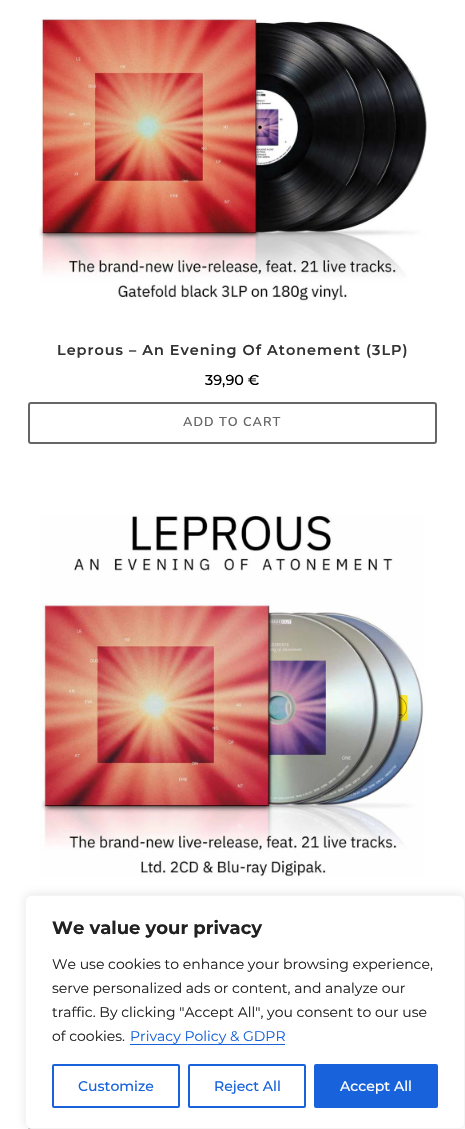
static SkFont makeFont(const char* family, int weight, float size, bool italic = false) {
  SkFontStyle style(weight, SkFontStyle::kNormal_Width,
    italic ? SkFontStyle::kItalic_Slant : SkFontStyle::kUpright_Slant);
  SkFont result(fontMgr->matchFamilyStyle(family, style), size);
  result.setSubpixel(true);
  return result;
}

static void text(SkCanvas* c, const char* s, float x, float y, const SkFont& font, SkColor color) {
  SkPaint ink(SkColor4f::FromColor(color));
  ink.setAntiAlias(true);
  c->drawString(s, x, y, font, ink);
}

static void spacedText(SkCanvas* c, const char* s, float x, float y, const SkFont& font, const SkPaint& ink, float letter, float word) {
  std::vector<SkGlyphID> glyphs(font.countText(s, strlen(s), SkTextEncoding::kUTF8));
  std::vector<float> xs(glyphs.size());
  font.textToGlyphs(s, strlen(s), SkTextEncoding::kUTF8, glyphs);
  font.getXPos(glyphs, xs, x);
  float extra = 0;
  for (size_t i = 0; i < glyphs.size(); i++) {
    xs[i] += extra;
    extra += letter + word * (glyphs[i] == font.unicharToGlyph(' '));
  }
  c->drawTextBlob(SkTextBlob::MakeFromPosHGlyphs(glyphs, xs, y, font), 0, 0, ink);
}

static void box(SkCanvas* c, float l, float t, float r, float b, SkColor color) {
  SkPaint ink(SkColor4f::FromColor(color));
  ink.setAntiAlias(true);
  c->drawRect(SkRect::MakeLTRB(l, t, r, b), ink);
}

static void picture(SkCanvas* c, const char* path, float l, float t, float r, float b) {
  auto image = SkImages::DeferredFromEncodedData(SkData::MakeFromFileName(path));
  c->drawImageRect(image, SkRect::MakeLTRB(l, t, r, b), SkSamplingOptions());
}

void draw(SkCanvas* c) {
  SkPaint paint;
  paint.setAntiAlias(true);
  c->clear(0xffffffff);
  picture(c, "img_01.png", 39, 17, 427, 302);
  SkFont face1 = makeFont("Montserrat", 600, 14.4f);
  paint.setColor(0xff333333);
  spacedText(c, "Leprous – An Evening Of Atonement (3LP)", 57, 355, face1, paint, 1, 0);
  SkFont face2 = makeFont("Montserrat", 500, 14.4f);
  text(c, "39,90 €", 205, 385, face2, 0xff000000);
  paint.setStyle(SkPaint::kStroke_Style);
  paint.setStrokeWidth(2);
  paint.setColor(0xff666666);
  c->drawRoundRect(SkRect::MakeLTRB(29, 403, 436, 443), 2, 2, paint);
  SkFont face3 = makeFont("Nunito", 600, 12.75f);
  paint.setStyle(SkPaint::kFill_Style);
  spacedText(c, "ADD TO CART", 183, 426, face3, paint, 1, 0);
  picture(c, "img_02.png", 40, 515, 425, 877);
  picture(c, "img_03.png", 28, 1128, 31, 1129);
  paint.setColor(0x4dacabab);
  paint.setMaskFilter(SkMaskFilter::MakeBlur(kNormal_SkBlurStyle, 5));
  c->drawRoundRect(SkRect::MakeLTRB(25, 894, 465, 1128), 6, 6, paint);
  paint.setMaskFilter(nullptr);
  paint.setColor(0xffffffff);
  c->drawRoundRect(SkRect::MakeLTRB(25.5f, 895.5f, 464.5f, 1128.5f), 5.5f, 5.5f, paint);
  paint.setStyle(SkPaint::kStroke_Style);
  paint.setStrokeWidth(1);
  paint.setColor(0xfff4f4f4);
  c->drawRoundRect(SkRect::MakeLTRB(25.5f, 895.5f, 464.5f, 1128.5f), 5.5f, 5.5f, paint);
  SkFont face4 = makeFont("Montserrat", 700, 18);
  text(c, "We value your privacy", 52, 934, face4, 0xff212121);
  SkFont face5 = makeFont("Montserrat", 400, 14);
  text(c, "We use cookies to enhance your browsing experience,", 52, 969, face5, 0xff212121);
  text(c, "serve personalized ads or content, and analyze our", 52, 993, face5, 0xff212121);
  text(c, "traffic. By clicking \"Accept All\", you consent to our use", 52, 1017, face5, 0xff212121);
  text(c, "of cookies.", 52, 1041, face5, 0xff212121);
  text(c, "Privacy Policy & GDPR", 130, 1041, face5, 0xff1863dc);
  box(c, 130, 1044, 285, 1045, 0xff1863dc);
  paint.setStrokeWidth(2);
  paint.setColor(0xff1863dc);
  c->drawRoundRect(SkRect::MakeLTRB(53, 1065, 179, 1107), 1, 1, paint);
  SkFont face6 = makeFont("Montserrat", 500, 14);
  text(c, "Customize", 78, 1091, face6, 0xff1863dc);
  c->drawRoundRect(SkRect::MakeLTRB(189, 1065, 305, 1107), 1, 1, paint);
  text(c, "Reject All", 214, 1091, face6, 0xff1863dc);
  paint.setStyle(SkPaint::kFill_Style);
  c->drawRoundRect(SkRect::MakeLTRB(315, 1065, 437, 1107), 1, 1, paint);
  paint.setStyle(SkPaint::kStroke_Style);
  c->drawRoundRect(SkRect::MakeLTRB(315, 1065, 437, 1107), 1, 1, paint);
  text(c, "Accept All", 340, 1091, face6, 0xffffffff);
}
